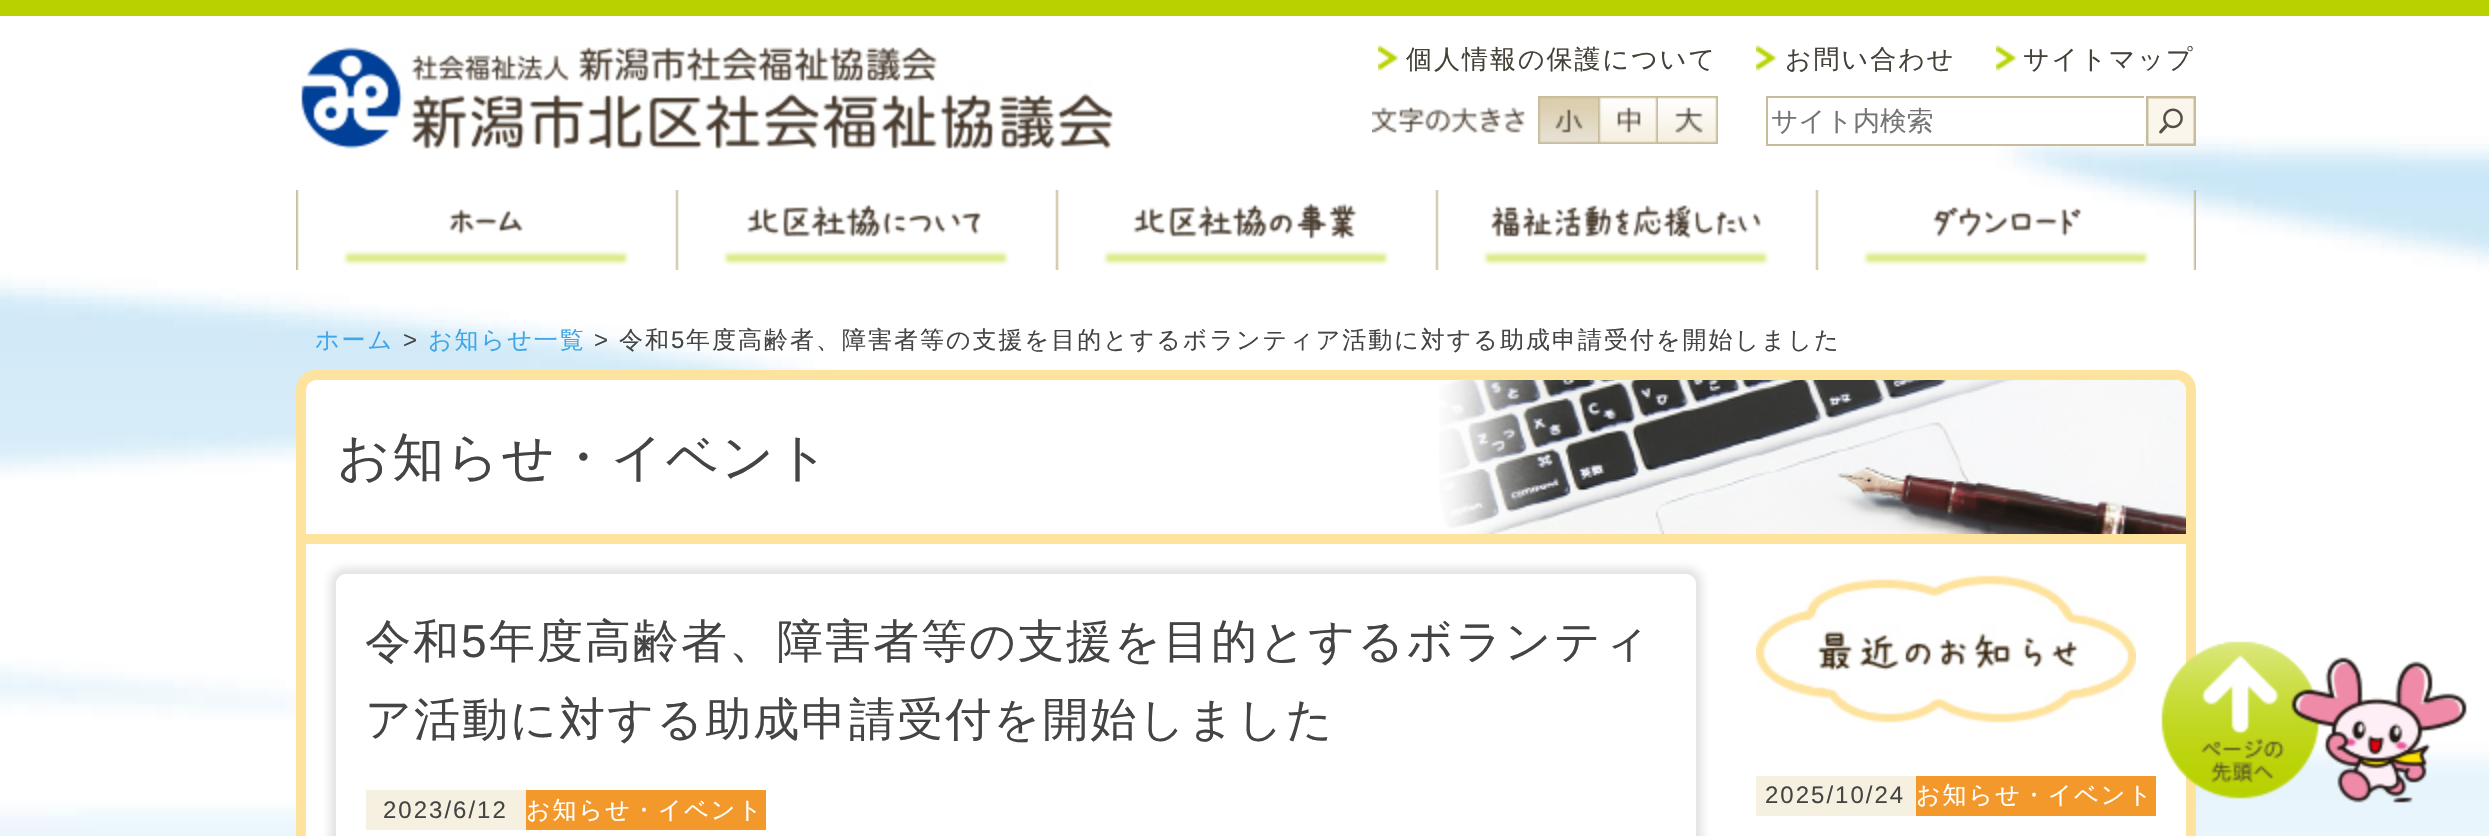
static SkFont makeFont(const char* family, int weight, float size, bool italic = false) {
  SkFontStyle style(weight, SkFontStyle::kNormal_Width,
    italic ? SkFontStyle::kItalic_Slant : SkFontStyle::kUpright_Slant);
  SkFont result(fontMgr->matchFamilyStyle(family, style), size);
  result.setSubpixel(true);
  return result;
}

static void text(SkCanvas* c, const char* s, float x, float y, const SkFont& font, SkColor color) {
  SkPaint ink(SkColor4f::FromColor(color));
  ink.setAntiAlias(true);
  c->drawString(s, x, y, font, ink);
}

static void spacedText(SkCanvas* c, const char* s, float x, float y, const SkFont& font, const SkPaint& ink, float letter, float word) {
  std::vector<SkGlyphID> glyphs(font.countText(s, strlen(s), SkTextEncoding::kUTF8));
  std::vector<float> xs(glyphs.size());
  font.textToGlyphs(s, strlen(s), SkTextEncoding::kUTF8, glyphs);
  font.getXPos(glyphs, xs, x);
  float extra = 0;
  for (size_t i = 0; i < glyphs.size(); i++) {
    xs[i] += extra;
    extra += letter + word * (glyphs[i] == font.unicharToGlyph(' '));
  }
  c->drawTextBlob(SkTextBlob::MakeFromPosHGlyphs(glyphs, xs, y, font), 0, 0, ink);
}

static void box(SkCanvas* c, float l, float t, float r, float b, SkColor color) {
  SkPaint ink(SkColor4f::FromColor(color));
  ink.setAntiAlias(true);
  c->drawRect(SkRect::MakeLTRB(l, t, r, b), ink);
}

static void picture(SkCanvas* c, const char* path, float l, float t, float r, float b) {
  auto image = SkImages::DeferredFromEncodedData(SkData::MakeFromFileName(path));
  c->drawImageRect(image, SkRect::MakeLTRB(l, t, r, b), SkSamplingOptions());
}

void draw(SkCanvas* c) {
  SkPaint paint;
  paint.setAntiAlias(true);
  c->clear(0xffffffff);
  picture(c, "img_01.png", 0, 136, 2489, 836);
  box(c, 0, 0, 2489, 16, 0xffb8d200);
  picture(c, "img_02.png", 301, 47, 1113, 149);
  picture(c, "img_03.png", 1378, 45, 1399, 71);
  SkFont face1 = makeFont("WenQuanYi Zen Hei", 500, 26);
  paint.setColor(0xff454138);
  spacedText(c, "個人情報の保護について", 1406, 68, face1, paint, 2, 0);
  picture(c, "img_03.png", 1756, 45, 1777, 71);
  spacedText(c, "お問い合わせ", 1785, 68, face1, paint, 2, 0);
  picture(c, "img_03.png", 1996, 45, 2017, 71);
  spacedText(c, "サイトマップ", 2023, 68, face1, paint, 2, 0);
  picture(c, "img_04.png", 1372, 107, 1525, 133);
  picture(c, "img_05.png", 1538, 96, 1598, 144);
  picture(c, "img_06.png", 1598, 96, 1658, 144);
  picture(c, "img_07.png", 1658, 96, 1718, 144);
  box(c, 1998, 136, 2144, 144, 0xffffffff);
  box(c, 1766, 96, 2144, 98, 0xffc9bc9c);
  box(c, 1766, 144, 2144, 146, 0xffc9bc9c);
  box(c, 1766, 96, 1768, 146, 0xffc9bc9c);
  SkFont face2 = makeFont("WenQuanYi Zen Hei", 500, 26.75f);
  text(c, "サイト内検索", 1771, 130, face2, 0xff757575);
  picture(c, "img_08.png", 2146, 96, 2196, 146);
  picture(c, "img_09.png", 296, 190, 2196, 270);
  SkFont face3 = makeFont("WenQuanYi Zen Hei", 500, 24);
  paint.setColor(0xff3fa7e6);
  spacedText(c, "ホーム", 315, 348, face3, paint, 2, 0);
  SkFont face4 = makeFont("Liberation Sans", 400, 24);
  paint.setColor(0xff444444);
  spacedText(c, ">", 403, 348, face4, paint, 2, 0);
  paint.setColor(0xff3fa7e6);
  spacedText(c, "お知らせ一覧", 428, 348, face3, paint, 2, 0);
  paint.setColor(0xff444444);
  spacedText(c, ">", 594, 348, face4, paint, 2, 0);
  spacedText(c, "令和", 619, 348, face3, paint, 2, 0);
  spacedText(c, "5", 671, 348, face4, paint, 2, 0);
  spacedText(c, "年度高齢者、障害者等の支援を目的とするボランティア活動に対する助成申請受付を開始しました", 686, 348, face3, paint, 2, 0);
  paint.setColor(0xffffffff);
  c->drawRoundRect(SkRect::MakeLTRB(301, 375, 2191, 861), 15, 15, paint);
  paint.setStyle(SkPaint::kStroke_Style);
  paint.setStrokeWidth(10);
  paint.setColor(0xfffee39e);
  c->drawRoundRect(SkRect::MakeLTRB(301, 375, 2191, 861), 15, 15, paint);
  picture(c, "img_10.png", 1439, 380, 2186, 534);
  box(c, 306, 534, 2186, 544, 0xfffee39e);
  SkFont face5 = makeFont("WenQuanYi Zen Hei", 500, 52);
  paint.setStyle(SkPaint::kFill_Style);
  paint.setColor(0xff444444);
  spacedText(c, "お知らせ・イベント", 337, 475, face5, paint, 2, 0);
  c->save();
  c->clipPath(SkPathBuilder(SkPathFillType::kEvenOdd).moveTo(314, 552).lineTo(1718, 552).lineTo(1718, 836).lineTo(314, 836).close().moveTo(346, 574).lineTo(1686, 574).cubicTo(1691.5f, 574, 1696, 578.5f, 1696, 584).lineTo(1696, 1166).cubicTo(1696, 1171.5f, 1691.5f, 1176, 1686, 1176).lineTo(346, 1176).cubicTo(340.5f, 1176, 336, 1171.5f, 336, 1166).lineTo(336, 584).cubicTo(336, 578.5f, 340.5f, 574, 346, 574).close().detach(), true);
  paint.setColor(0xa6d1d1d1);
  paint.setMaskFilter(SkMaskFilter::MakeBlur(kNormal_SkBlurStyle, 5));
  c->drawRoundRect(SkRect::MakeLTRB(330, 568, 1702, 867), 16, 16, paint);
  paint.setMaskFilter(nullptr);
  c->restore();
  SkFont face6 = makeFont("WenQuanYi Zen Hei", 500, 46);
  paint.setColor(0xff444444);
  spacedText(c, "令和", 365, 657, face6, paint, 2, 0);
  SkFont face7 = makeFont("Liberation Sans", 400, 46);
  spacedText(c, "5", 461, 657, face7, paint, 2, 0);
  spacedText(c, "年度高齢者、障害者等の支援を目的とするボランティ", 489, 657, face6, paint, 2, 0);
  spacedText(c, "ア活動に対する助成申請受付を開始しました", 365, 735, face6, paint, 2, 0);
  box(c, 366, 790, 526, 830, 0xfff6f0e0);
  spacedText(c, "2023/6/12", 383, 818, face4, paint, 2, 0);
  box(c, 526, 790, 766, 830, 0xfff3992b);
  paint.setColor(0xffffffff);
  spacedText(c, "お知らせ・イベント", 526, 818, face3, paint, 2, 0);
  picture(c, "img_11.png", 1756, 575, 2136, 723);
  box(c, 1756, 776, 1916, 816, 0xfff6f0e0);
  paint.setColor(0xff444444);
  spacedText(c, "2025/10/24", 1765, 803, face4, paint, 2, 0);
  box(c, 1916, 776, 2156, 816, 0xfff3992b);
  paint.setColor(0xffffffff);
  spacedText(c, "お知らせ・イベント", 1916, 803, face3, paint, 2, 0);
  picture(c, "img_12.png", 2161, 641, 2467, 803);
}
